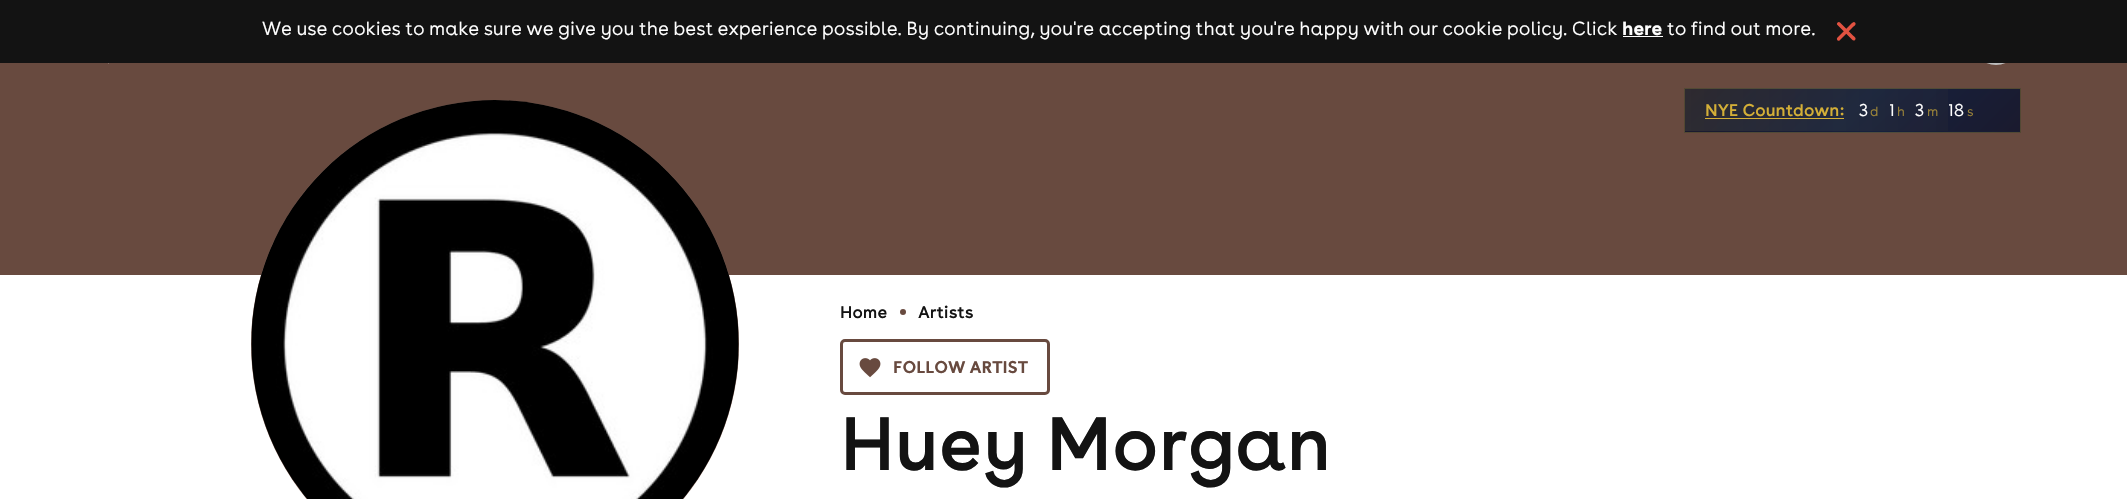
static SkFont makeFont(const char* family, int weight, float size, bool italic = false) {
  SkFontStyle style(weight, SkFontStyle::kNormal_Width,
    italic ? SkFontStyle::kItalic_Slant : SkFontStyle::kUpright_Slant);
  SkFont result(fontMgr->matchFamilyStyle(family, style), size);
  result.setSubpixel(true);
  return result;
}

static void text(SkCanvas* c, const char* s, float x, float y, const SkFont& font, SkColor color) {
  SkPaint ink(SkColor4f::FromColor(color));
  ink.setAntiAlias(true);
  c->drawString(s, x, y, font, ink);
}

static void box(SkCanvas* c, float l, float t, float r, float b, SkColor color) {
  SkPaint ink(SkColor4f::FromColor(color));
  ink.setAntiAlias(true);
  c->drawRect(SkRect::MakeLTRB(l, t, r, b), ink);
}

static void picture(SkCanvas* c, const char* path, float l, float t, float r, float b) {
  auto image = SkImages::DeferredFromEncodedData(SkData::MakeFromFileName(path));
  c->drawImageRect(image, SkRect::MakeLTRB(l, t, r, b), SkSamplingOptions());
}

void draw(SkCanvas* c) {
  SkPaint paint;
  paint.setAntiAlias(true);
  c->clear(0xffffffff);
  box(c, 0, 63, 2127, 275, 0xff684a3f);
  paint.setColor(0xffbdbdbd);
  c->drawCircle(1996, 40, 25, paint);
  box(c, 0, 0, 2127, 63, 0xff131313);
  SkFont face1 = makeFont("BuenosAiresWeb", 300, 20);
  text(c, "We use cookies to make sure we give you the best experience possible. By continuing, you're accepting that you're happy with our cookie policy. Click", 262, 35, face1, 0xffffffff);
  SkFont face2 = makeFont("BuenosAiresWeb", 700, 20);
  text(c, "here", 1622, 35, face2, 0xffffffff);
  box(c, 1623, 36, 1663, 37, 0xffffffff);
  text(c, "to find out more.", 1667, 35, face1, 0xffffffff);
  paint.setColor(0xffe25241);
  c->drawPath(SkPathBuilder().moveTo(1837.5f, 37.5f).lineTo(1850, 25).cubicTo(1851, 24, 1853.5f, 20.5f, 1855, 22.5f).cubicTo(1857, 24.5f, 1853.5f, 26.5f, 1852.5f, 27.5f).lineTo(1839.5f, 40.5f).cubicTo(1837.5f, 41.5f, 1836, 39, 1837.5f, 37.5f).close().detach(), paint);
  c->drawPath(SkPathBuilder().moveTo(1840, 22.5f).lineTo(1852.5f, 35).cubicTo(1853.5f, 36, 1857, 38, 1855, 40).cubicTo(1853.5f, 42, 1851, 38.5f, 1850, 37.5f).lineTo(1837, 24.5f).cubicTo(1836.5f, 22.5f, 1839, 21, 1840, 22.5f).close().detach(), paint);
  picture(c, "img_01.png", 108, 63, 109, 64);
  {
    const SkColor colors[] = {0xff1a1a2e, 0xff16213e, 0xff1a1a2e};
    const float stops[] = {0, 0.5f, 1};
    const SkPoint ends[] = {{1423, -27}, {1612, 162}};
    paint.setShader(SkGradientShader::MakeLinear(ends, colors, stops, 3, SkTileMode::kClamp));
    paint.setAlpha(255);
  }
  c->drawRect(SkRect::MakeLTRB(1684, 88, 1685, 89), paint);
  {
    const SkColor colors[] = {0xff1a1a2e, 0xff16213e, 0xff1a1a2e};
    const float stops[] = {0, 0.5f, 1};
    const SkPoint ends[] = {{1758, -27}, {1947, 162}};
    paint.setShader(SkGradientShader::MakeLinear(ends, colors, stops, 3, SkTileMode::kClamp));
    paint.setAlpha(255);
  }
  c->drawRect(SkRect::MakeLTRB(1685, 88, 2020, 89), paint);
  {
    const SkColor colors[] = {0xff1a1a2e, 0xff16213e, 0xff1a1a2e};
    const float stops[] = {0, 0.5f, 1};
    const SkPoint ends[] = {{2093, -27}, {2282, 162}};
    paint.setShader(SkGradientShader::MakeLinear(ends, colors, stops, 3, SkTileMode::kClamp));
    paint.setAlpha(255);
  }
  c->drawRect(SkRect::MakeLTRB(2020, 88, 2021, 89), paint);
  {
    const SkColor colors[] = {0xff1a1a2e, 0xff16213e, 0xff1a1a2e};
    const float stops[] = {0, 0.5f, 1};
    const SkPoint ends[] = {{1423, 16}, {1612, 204}};
    paint.setShader(SkGradientShader::MakeLinear(ends, colors, stops, 3, SkTileMode::kClamp));
    paint.setAlpha(255);
  }
  c->drawRect(SkRect::MakeLTRB(1684, 89, 1685, 131), paint);
  {
    const SkColor colors[] = {0xff1a1a2e, 0xff16213e, 0xff1a1a2e};
    const float stops[] = {0, 0.5f, 1};
    const SkPoint ends[] = {{1758, 16}, {1947, 204}};
    paint.setShader(SkGradientShader::MakeLinear(ends, colors, stops, 3, SkTileMode::kClamp));
    paint.setAlpha(255);
  }
  c->drawRect(SkRect::MakeLTRB(1685, 89, 2020, 131), paint);
  {
    const SkColor colors[] = {0xff1a1a2e, 0xff16213e, 0xff1a1a2e};
    const float stops[] = {0, 0.5f, 1};
    const SkPoint ends[] = {{2093, 16}, {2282, 204}};
    paint.setShader(SkGradientShader::MakeLinear(ends, colors, stops, 3, SkTileMode::kClamp));
    paint.setAlpha(255);
  }
  c->drawRect(SkRect::MakeLTRB(2020, 89, 2021, 131), paint);
  {
    const SkColor colors[] = {0xff1a1a2e, 0xff16213e, 0xff1a1a2e};
    const float stops[] = {0, 0.5f, 1};
    const SkPoint ends[] = {{1423, 58}, {1612, 247}};
    paint.setShader(SkGradientShader::MakeLinear(ends, colors, stops, 3, SkTileMode::kClamp));
    paint.setAlpha(255);
  }
  c->drawRect(SkRect::MakeLTRB(1684, 131, 1685, 133), paint);
  {
    const SkColor colors[] = {0xff1a1a2e, 0xff16213e, 0xff1a1a2e};
    const float stops[] = {0, 0.5f, 1};
    const SkPoint ends[] = {{1758, 58}, {1947, 247}};
    paint.setShader(SkGradientShader::MakeLinear(ends, colors, stops, 3, SkTileMode::kClamp));
    paint.setAlpha(255);
  }
  c->drawRect(SkRect::MakeLTRB(1685, 131, 2020, 133), paint);
  {
    const SkColor colors[] = {0xff1a1a2e, 0xff16213e, 0xff1a1a2e};
    const float stops[] = {0, 0.5f, 1};
    const SkPoint ends[] = {{2093, 58}, {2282, 247}};
    paint.setShader(SkGradientShader::MakeLinear(ends, colors, stops, 3, SkTileMode::kClamp));
    paint.setAlpha(255);
  }
  c->drawRect(SkRect::MakeLTRB(2020, 131, 2021, 133), paint);
  paint.setStyle(SkPaint::kStroke_Style);
  paint.setStrokeWidth(1);
  paint.setShader(nullptr);
  paint.setColor(0x4dd4af37);
  c->drawRect(SkRect::MakeLTRB(1684.5f, 88.5f, 2020.5f, 132.5f), paint);
  paint.setStyle(SkPaint::kFill_Style);
  {
    const SkColor colors[] = {0x00d4af37, 0x1ad4af37, 0x00d4af37};
    const float stops[] = {0, 0.5f, 1};
    const SkPoint ends[] = {{1350, 110}, {2020, 110}};
    paint.setShader(SkGradientShader::MakeLinear(ends, colors, stops, 3, SkTileMode::kClamp));
    paint.setAlpha(255);
  }
  c->drawRect(SkRect::MakeLTRB(1685, 89, 1948, 131), paint);
  SkFont face3 = makeFont("BuenosAiresWeb", 400, 18);
  text(c, "NYE Countdown:", 1705, 116, face3, 0xffd4af37);
  box(c, 1705, 118, 1844, 119, 0xffd4af37);
  SkFont face4 = makeFont("BuenosAiresWeb", 300, 18);
  text(c, "3", 1859, 116, face4, 0xffffffff);
  SkFont face5 = makeFont("BuenosAiresWeb", 300, 14);
  text(c, "d", 1870, 116, face5, 0xff9e8638);
  text(c, "1", 1889, 116, face4, 0xffffffff);
  text(c, "h", 1897, 116, face5, 0xff9e8638);
  text(c, "3", 1915, 116, face4, 0xffffffff);
  text(c, "m", 1927, 116, face5, 0xff9e8638);
  text(c, "18", 1948, 116, face4, 0xffffffff);
  text(c, "s", 1967, 116, face5, 0xff9e8638);
  paint.setShader(nullptr);
  paint.setColor(0xff97766a);
  c->drawCircle(495, 344, 244, paint);
  picture(c, "img_02.png", 251, 100, 739, 499);
  text(c, "Home", 840, 318, face3, 0xff131313);
  paint.setColor(0xff684a3f);
  c->drawCircle(903, 312, 3, paint);
  text(c, "Artists", 918, 318, face3, 0xff131313);
  paint.setStyle(SkPaint::kStroke_Style);
  paint.setStrokeWidth(3);
  c->drawRoundRect(SkRect::MakeLTRB(841.5f, 340.5f, 1048.5f, 393.5f), 3.5f, 3.5f, paint);
  picture(c, "img_03.png", 859, 358, 881, 378);
  SkFont face6 = makeFont("BuenosAiresWeb", 700, 18);
  text(c, "FOLLOW ARTIST", 893, 373, face6, 0xff684a3f);
  SkFont face7 = makeFont("BuenosAiresWeb", 400, 80);
  text(c, "Huey Morgan", 840, 470, face7, 0xff131313);
}
